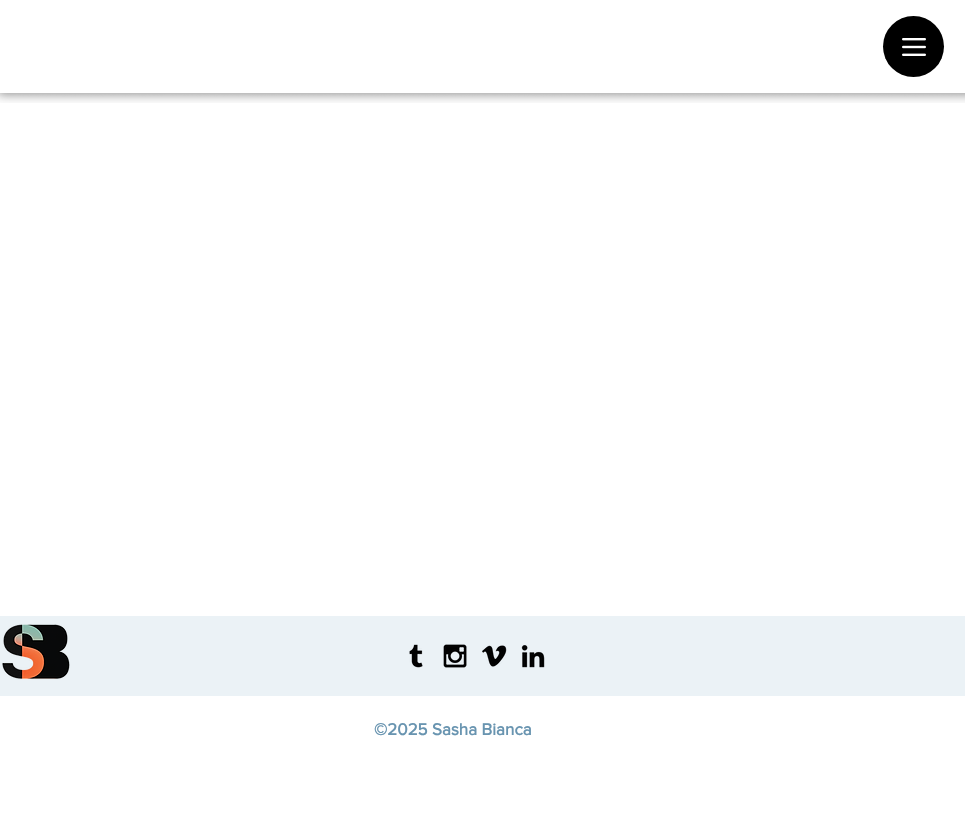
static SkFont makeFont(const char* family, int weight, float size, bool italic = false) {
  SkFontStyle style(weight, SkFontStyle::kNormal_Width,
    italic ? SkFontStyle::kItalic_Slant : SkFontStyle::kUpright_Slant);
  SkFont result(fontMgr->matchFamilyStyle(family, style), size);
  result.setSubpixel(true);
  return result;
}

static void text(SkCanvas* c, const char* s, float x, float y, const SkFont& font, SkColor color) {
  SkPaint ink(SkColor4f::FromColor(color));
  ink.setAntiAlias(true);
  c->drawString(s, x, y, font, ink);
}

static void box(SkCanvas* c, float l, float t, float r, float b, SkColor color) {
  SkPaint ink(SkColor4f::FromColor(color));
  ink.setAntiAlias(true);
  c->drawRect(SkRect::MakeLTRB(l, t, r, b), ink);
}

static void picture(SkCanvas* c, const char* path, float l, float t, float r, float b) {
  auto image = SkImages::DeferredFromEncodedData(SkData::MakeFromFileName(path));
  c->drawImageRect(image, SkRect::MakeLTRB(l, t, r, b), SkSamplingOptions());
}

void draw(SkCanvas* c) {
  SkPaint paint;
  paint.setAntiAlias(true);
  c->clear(0xffffffff);
  paint.setColor(0xff000000);
  c->drawCircle(913.5f, 46.5f, 30.5f, paint);
  picture(c, "img_01.png", 902, 38, 926, 56);
  picture(c, "img_02.png", 0, 93, 35, 103);
  picture(c, "img_03.png", 35, 93, 945, 103);
  picture(c, "img_04.png", 945, 93, 965, 103);
  box(c, 0, 616, 965, 696, 0xffebf2f6);
  picture(c, "img_05.png", 2, 624, 70, 679);
  picture(c, "img_06.png", 409, 644, 423, 668);
  picture(c, "img_07.png", 443, 644, 467, 668);
  picture(c, "img_08.png", 482, 645, 507, 667);
  picture(c, "img_09.png", 521, 645, 545, 668);
  SkFont face1 = makeFont("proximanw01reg", 700, 17);
  text(c, "©2025 Sasha Bianca", 374, 735, face1, 0xff6894b0);
}
